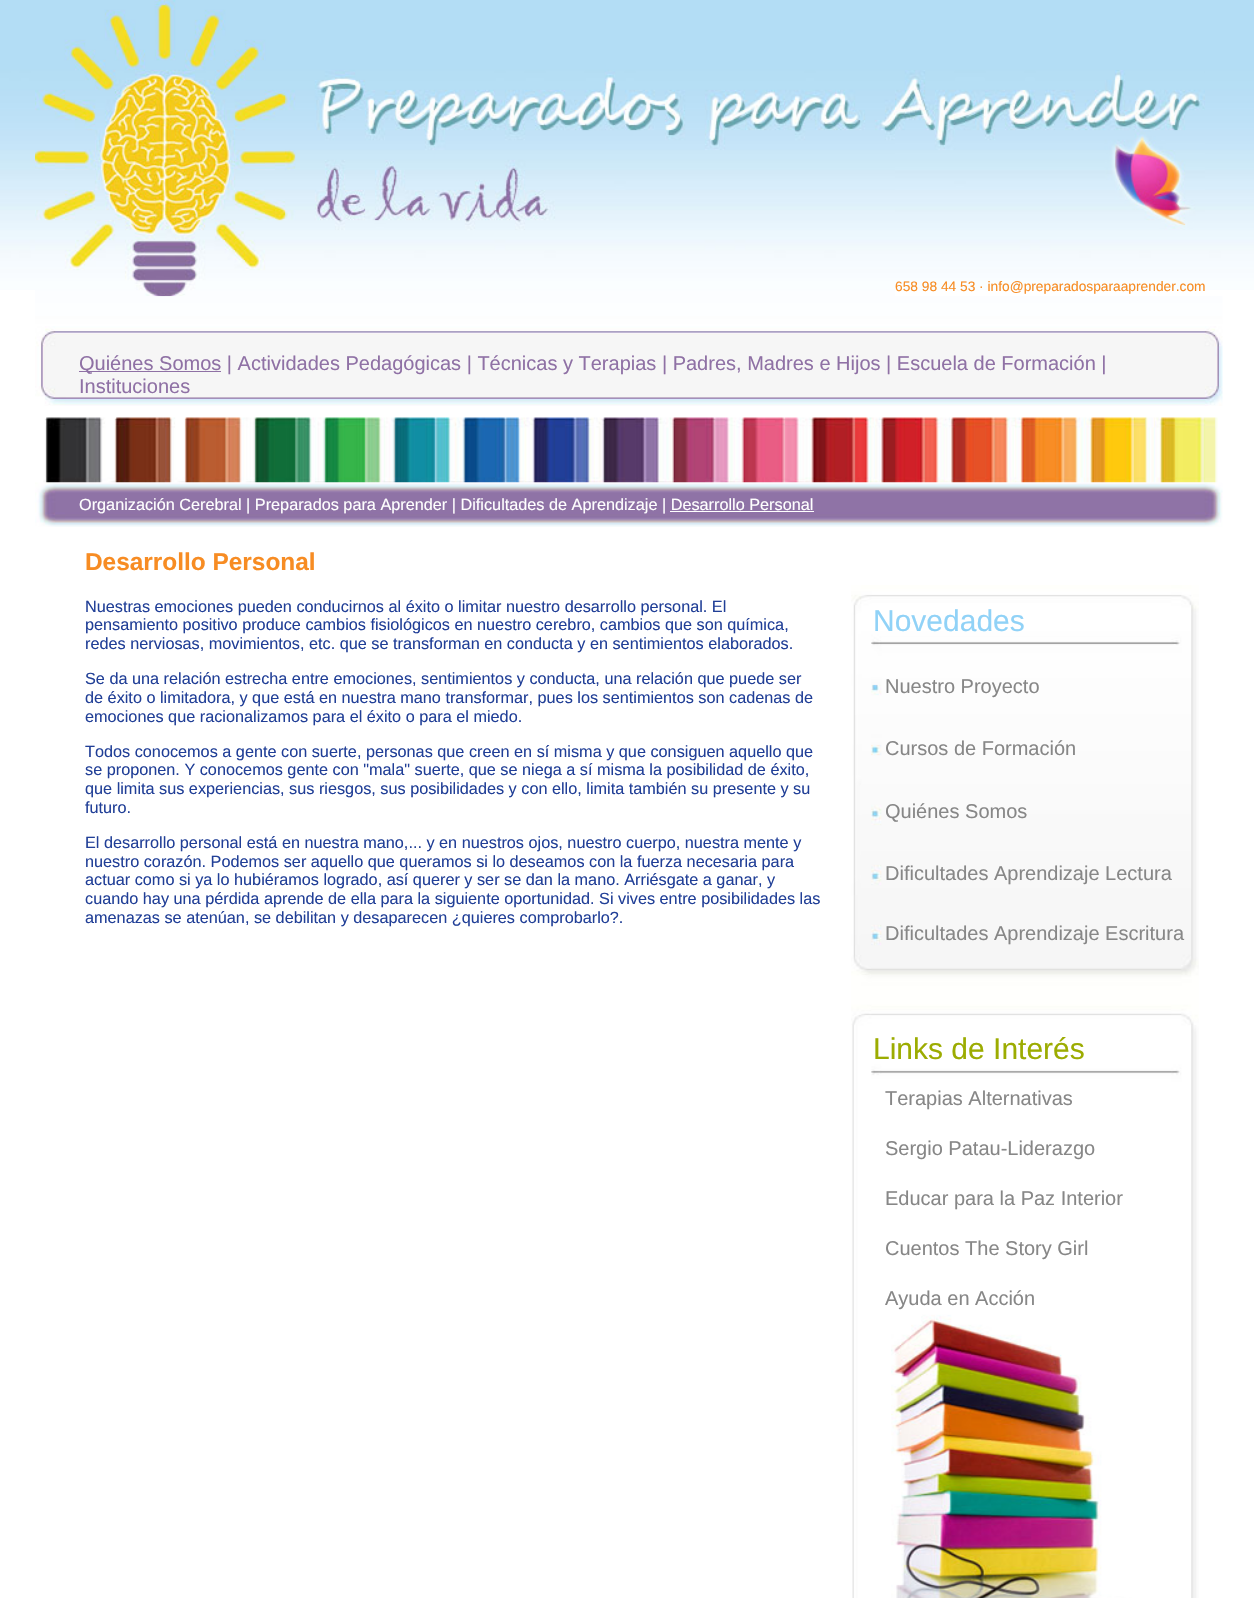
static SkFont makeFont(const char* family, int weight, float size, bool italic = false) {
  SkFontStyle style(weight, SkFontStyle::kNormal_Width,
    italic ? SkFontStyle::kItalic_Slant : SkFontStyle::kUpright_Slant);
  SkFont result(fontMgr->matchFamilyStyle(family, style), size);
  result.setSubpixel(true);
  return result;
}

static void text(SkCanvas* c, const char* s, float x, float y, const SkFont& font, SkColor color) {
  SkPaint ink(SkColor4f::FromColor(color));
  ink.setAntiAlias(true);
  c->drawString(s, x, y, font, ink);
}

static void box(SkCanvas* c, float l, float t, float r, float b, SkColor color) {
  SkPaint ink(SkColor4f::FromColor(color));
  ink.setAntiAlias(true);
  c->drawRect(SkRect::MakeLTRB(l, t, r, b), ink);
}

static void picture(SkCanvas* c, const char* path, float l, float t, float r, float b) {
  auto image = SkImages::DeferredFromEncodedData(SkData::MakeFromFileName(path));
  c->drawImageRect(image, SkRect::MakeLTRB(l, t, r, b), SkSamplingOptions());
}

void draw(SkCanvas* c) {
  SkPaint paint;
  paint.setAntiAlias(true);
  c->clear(0xffffffff);
  picture(c, "img_01.png", 0, 0, 1254, 290);
  picture(c, "img_02.png", 35, 0, 895, 297);
  picture(c, "img_03.png", 895, 70, 1205, 230);
  SkFont face1 = makeFont("Liberation Sans", 400, 13.75f);
  text(c, "658 98 44 53 · info@preparadosparaaprender.com", 895, 291, face1, 0xfff78c23);
  picture(c, "img_04.png", 35, 296, 1223, 406);
  box(c, 79, 371, 221, 372, 0xff8f71a5);
  SkFont face2 = makeFont("Liberation Sans", 400, 20);
  text(c, "Quiénes Somos | Actividades Pedagógicas | Técnicas y Terapias | Padres, Madres e Hijos | Escuela de Formación |", 79, 370, face2, 0xff8f71a5);
  text(c, "Instituciones", 79, 393, face2, 0xff8f71a5);
  picture(c, "img_05.png", 43, 417, 1218, 483);
  picture(c, "img_06.png", 35, 482, 1223, 527);
  SkFont face3 = makeFont("Liberation Sans", 400, 16.25f);
  text(c, "Organización Cerebral | Preparados para Aprender | Dificultades de Aprendizaje | Desarrollo Personal", 79, 510, face3, 0xffffffff);
  box(c, 670, 511, 814, 512, 0xffffffff);
  SkFont face4 = makeFont("Liberation Sans", 700, 24.4f);
  text(c, "Desarrollo Personal", 85, 570, face4, 0xfff78c23);
  text(c, "Nuestras emociones pueden conducirnos al éxito o limitar nuestro desarrollo personal. El", 85, 612, face3, 0xff213f97);
  text(c, "pensamiento positivo produce cambios fisiológicos en nuestro cerebro, cambios que son química,", 85, 630, face3, 0xff213f97);
  text(c, "redes nerviosas, movimientos, etc. que se transforman en conducta y en sentimientos elaborados.", 85, 649, face3, 0xff213f97);
  text(c, "Se da una relación estrecha entre emociones, sentimientos y conducta, una relación que puede ser", 85, 684, face3, 0xff213f97);
  text(c, "de éxito o limitadora, y que está en nuestra mano transformar, pues los sentimientos son cadenas de", 85, 703, face3, 0xff213f97);
  text(c, "emociones que racionalizamos para el éxito o para el miedo.", 85, 722, face3, 0xff213f97);
  text(c, "Todos conocemos a gente con suerte, personas que creen en sí misma y que consiguen aquello que", 85, 757, face3, 0xff213f97);
  text(c, "se proponen. Y conocemos gente con \"mala\" suerte, que se niega a sí misma la posibilidad de éxito,", 85, 775, face3, 0xff213f97);
  text(c, "que limita sus experiencias, sus riesgos, sus posibilidades y con ello, limita también su presente y su", 85, 794, face3, 0xff213f97);
  text(c, "futuro.", 85, 813, face3, 0xff213f97);
  text(c, "El desarrollo personal está en nuestra mano,... y en nuestros ojos, nuestro cuerpo, nuestra mente y", 85, 848, face3, 0xff213f97);
  text(c, "nuestro corazón. Podemos ser aquello que queramos si lo deseamos con la fuerza necesaria para", 85, 867, face3, 0xff213f97);
  text(c, "actuar como si ya lo hubiéramos logrado, así querer y ser se dan la mano. Arriésgate a ganar, y", 85, 885, face3, 0xff213f97);
  text(c, "cuando hay una pérdida aprende de ella para la siguiente oportunidad. Si vives entre posibilidades las", 85, 904, face3, 0xff213f97);
  text(c, "amenazas se atenúan, se debilitan y desaparecen ¿quieres comprobarlo?.", 85, 923, face3, 0xff213f97);
  picture(c, "img_07.png", 851, 585, 1199, 1598);
  SkFont face5 = makeFont("Liberation Sans", 400, 30);
  text(c, "Novedades", 873, 631, face5, 0xff90d2f7);
  text(c, "Nuestro Proyecto", 885, 693, face2, 0xff878787);
  text(c, "Cursos de Formación", 885, 755, face2, 0xff878787);
  text(c, "Quiénes Somos", 885, 818, face2, 0xff878787);
  text(c, "Dificultades Aprendizaje Lectura", 885, 880, face2, 0xff878787);
  text(c, "Dificultades Aprendizaje Escritura", 885, 940, face2, 0xff878787);
  text(c, "Links de Interés", 873, 1059, face5, 0xff9cac01);
  text(c, "Terapias Alternativas", 885, 1105, face2, 0xff878787);
  text(c, "Sergio Patau-Liderazgo", 885, 1155, face2, 0xff878787);
  text(c, "Educar para la Paz Interior", 885, 1205, face2, 0xff878787);
  text(c, "Cuentos The Story Girl", 885, 1255, face2, 0xff878787);
  text(c, "Ayuda en Acción", 885, 1305, face2, 0xff878787);
}
